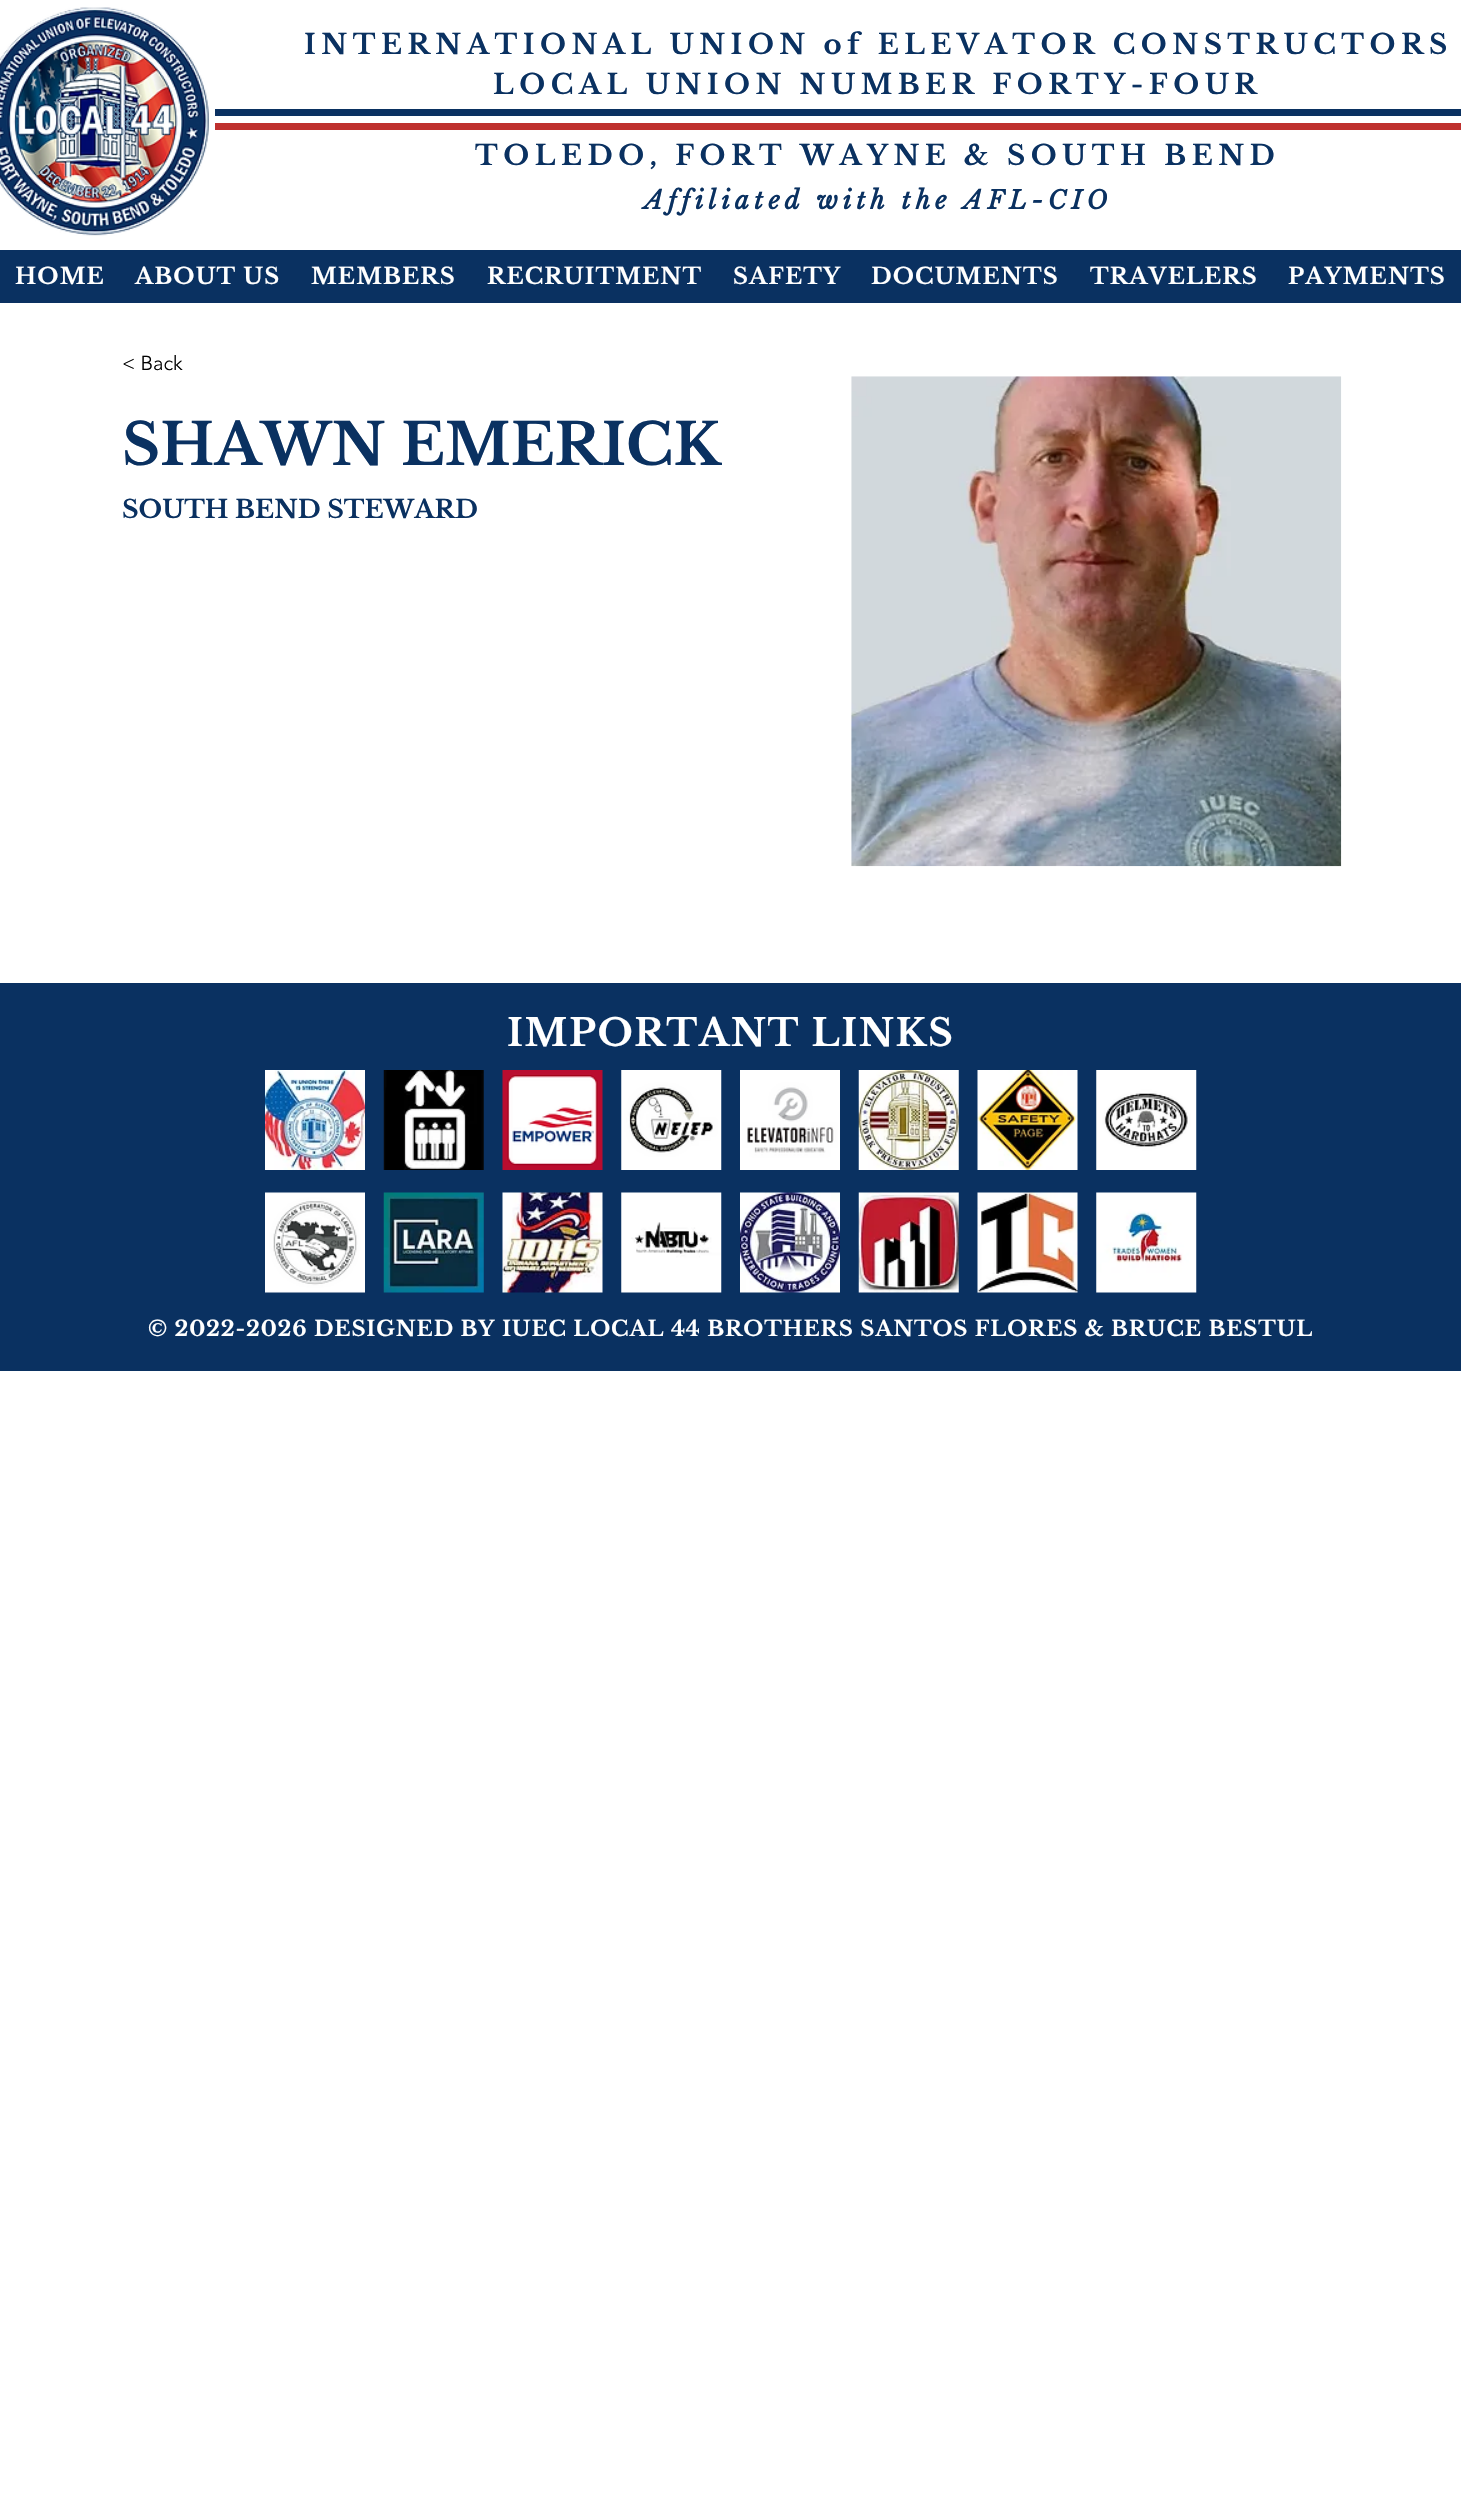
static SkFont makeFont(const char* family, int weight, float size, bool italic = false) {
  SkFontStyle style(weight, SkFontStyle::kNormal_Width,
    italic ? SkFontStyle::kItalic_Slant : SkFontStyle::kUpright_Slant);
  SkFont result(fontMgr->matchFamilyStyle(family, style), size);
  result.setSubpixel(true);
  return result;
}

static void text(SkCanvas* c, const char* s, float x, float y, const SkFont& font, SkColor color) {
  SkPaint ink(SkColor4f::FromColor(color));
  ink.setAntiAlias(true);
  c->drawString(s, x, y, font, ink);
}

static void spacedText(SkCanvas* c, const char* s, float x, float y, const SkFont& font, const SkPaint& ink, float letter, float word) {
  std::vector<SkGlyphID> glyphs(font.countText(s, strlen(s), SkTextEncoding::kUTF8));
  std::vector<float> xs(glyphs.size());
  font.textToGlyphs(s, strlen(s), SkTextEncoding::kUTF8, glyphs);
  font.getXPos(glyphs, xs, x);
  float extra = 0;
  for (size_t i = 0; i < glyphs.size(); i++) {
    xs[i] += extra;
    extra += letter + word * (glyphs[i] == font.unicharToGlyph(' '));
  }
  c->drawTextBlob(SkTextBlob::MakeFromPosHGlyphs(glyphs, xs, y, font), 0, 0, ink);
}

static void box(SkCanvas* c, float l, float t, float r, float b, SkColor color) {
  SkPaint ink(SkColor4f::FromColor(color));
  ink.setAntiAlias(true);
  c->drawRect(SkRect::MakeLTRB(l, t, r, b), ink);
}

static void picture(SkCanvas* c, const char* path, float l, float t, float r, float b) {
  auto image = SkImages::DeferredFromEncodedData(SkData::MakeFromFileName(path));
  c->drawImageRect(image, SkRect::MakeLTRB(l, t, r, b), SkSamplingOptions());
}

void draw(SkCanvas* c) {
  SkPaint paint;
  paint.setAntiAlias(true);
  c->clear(0xffffffff);
  picture(c, "img_01.png", 0, 7, 209, 236);
  SkFont face1 = makeFont("Libre Baskerville", 700, 27.5f);
  paint.setColor(0xff0a3161);
  spacedText(c, "INTERNATIONAL UNION of ELEVATOR CONSTRUCTORS", 304, 54, face1, paint, 5.5f, 0);
  spacedText(c, "LOCAL UNION NUMBER FORTY-FOUR", 493, 94, face1, paint, 5.5f, 0);
  box(c, 215, 109, 1461, 116, 0xff0a3161);
  box(c, 215, 123, 1461, 130, 0xffbf302e);
  spacedText(c, "TOLEDO, FORT WAYNE & SOUTH BEND", 475, 165, face1, paint, 5.5f, 0);
  SkFont face2 = makeFont("Libre Baskerville", 700, 25, true);
  spacedText(c, "Affiliated with the AFL-CIO", 644, 209, face2, paint, 5, 0);
  box(c, 0, 250, 1461, 303, 0xff0a3161);
  SkFont face3 = makeFont("Libre Baskerville", 700, 22.5f);
  paint.setColor(0xffffffff);
  spacedText(c, "HOME", 15, 284, face3, paint, 1.1f, 0);
  spacedText(c, "ABOUT US", 135, 284, face3, paint, 1.1f, 0);
  spacedText(c, "MEMBERS", 311, 284, face3, paint, 1.1f, 0);
  spacedText(c, "RECRUITMENT", 487, 284, face3, paint, 1.1f, 0);
  spacedText(c, "SAFETY", 733, 284, face3, paint, 1.1f, 0);
  spacedText(c, "DOCUMENTS", 871, 284, face3, paint, 1.1f, 0);
  spacedText(c, "TRAVELERS", 1090, 284, face3, paint, 1.1f, 0);
  spacedText(c, "PAYMENTS", 1288, 284, face3, paint, 1.1f, 0);
  SkFont face4 = makeFont("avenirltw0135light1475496", 300, 20);
  text(c, "< Back", 122, 370, face4, 0xff000000);
  SkFont face5 = makeFont("Libre Baskerville", 700, 57.5f);
  text(c, "SHAWN EMERICK", 122, 465, face5, 0xff0a3161);
  SkFont face6 = makeFont("Libre Baskerville", 700, 25);
  text(c, "SOUTH BEND STEWARD", 122, 518, face6, 0xff0a3161);
  picture(c, "img_02.png", 851, 376, 1342, 867);
  box(c, 0, 983, 1461, 1371, 0xff0a3161);
  SkFont face7 = makeFont("Libre Baskerville", 700, 37.5f);
  spacedText(c, "IMPORTANT LINKS", 507, 1046, face7, paint, 1.5f, 0);
  picture(c, "img_03.png", 265, 1070, 365, 1170);
  picture(c, "img_04.png", 383, 1070, 484, 1170);
  picture(c, "img_05.png", 502, 1070, 603, 1170);
  picture(c, "img_06.png", 621, 1070, 722, 1170);
  picture(c, "img_07.png", 740, 1070, 840, 1170);
  picture(c, "img_08.png", 858, 1070, 959, 1170);
  picture(c, "img_09.png", 977, 1070, 1078, 1170);
  picture(c, "img_10.png", 1096, 1070, 1197, 1170);
  picture(c, "img_11.png", 265, 1192, 365, 1293);
  picture(c, "img_12.png", 383, 1192, 484, 1293);
  picture(c, "img_13.png", 502, 1192, 603, 1293);
  picture(c, "img_14.png", 621, 1192, 722, 1293);
  picture(c, "img_15.png", 740, 1192, 840, 1293);
  picture(c, "img_16.png", 858, 1192, 959, 1293);
  picture(c, "img_17.png", 977, 1192, 1078, 1293);
  picture(c, "img_18.png", 1096, 1192, 1197, 1293);
  SkFont face8 = makeFont("Libre Baskerville", 700, 21.25f);
  spacedText(c, "© 2022-2026 DESIGNED BY IUEC LOCAL 44 BROTHERS SANTOS FLORES & BRUCE BESTUL", 148, 1336, face8, paint, 0.85f, 0);
}
